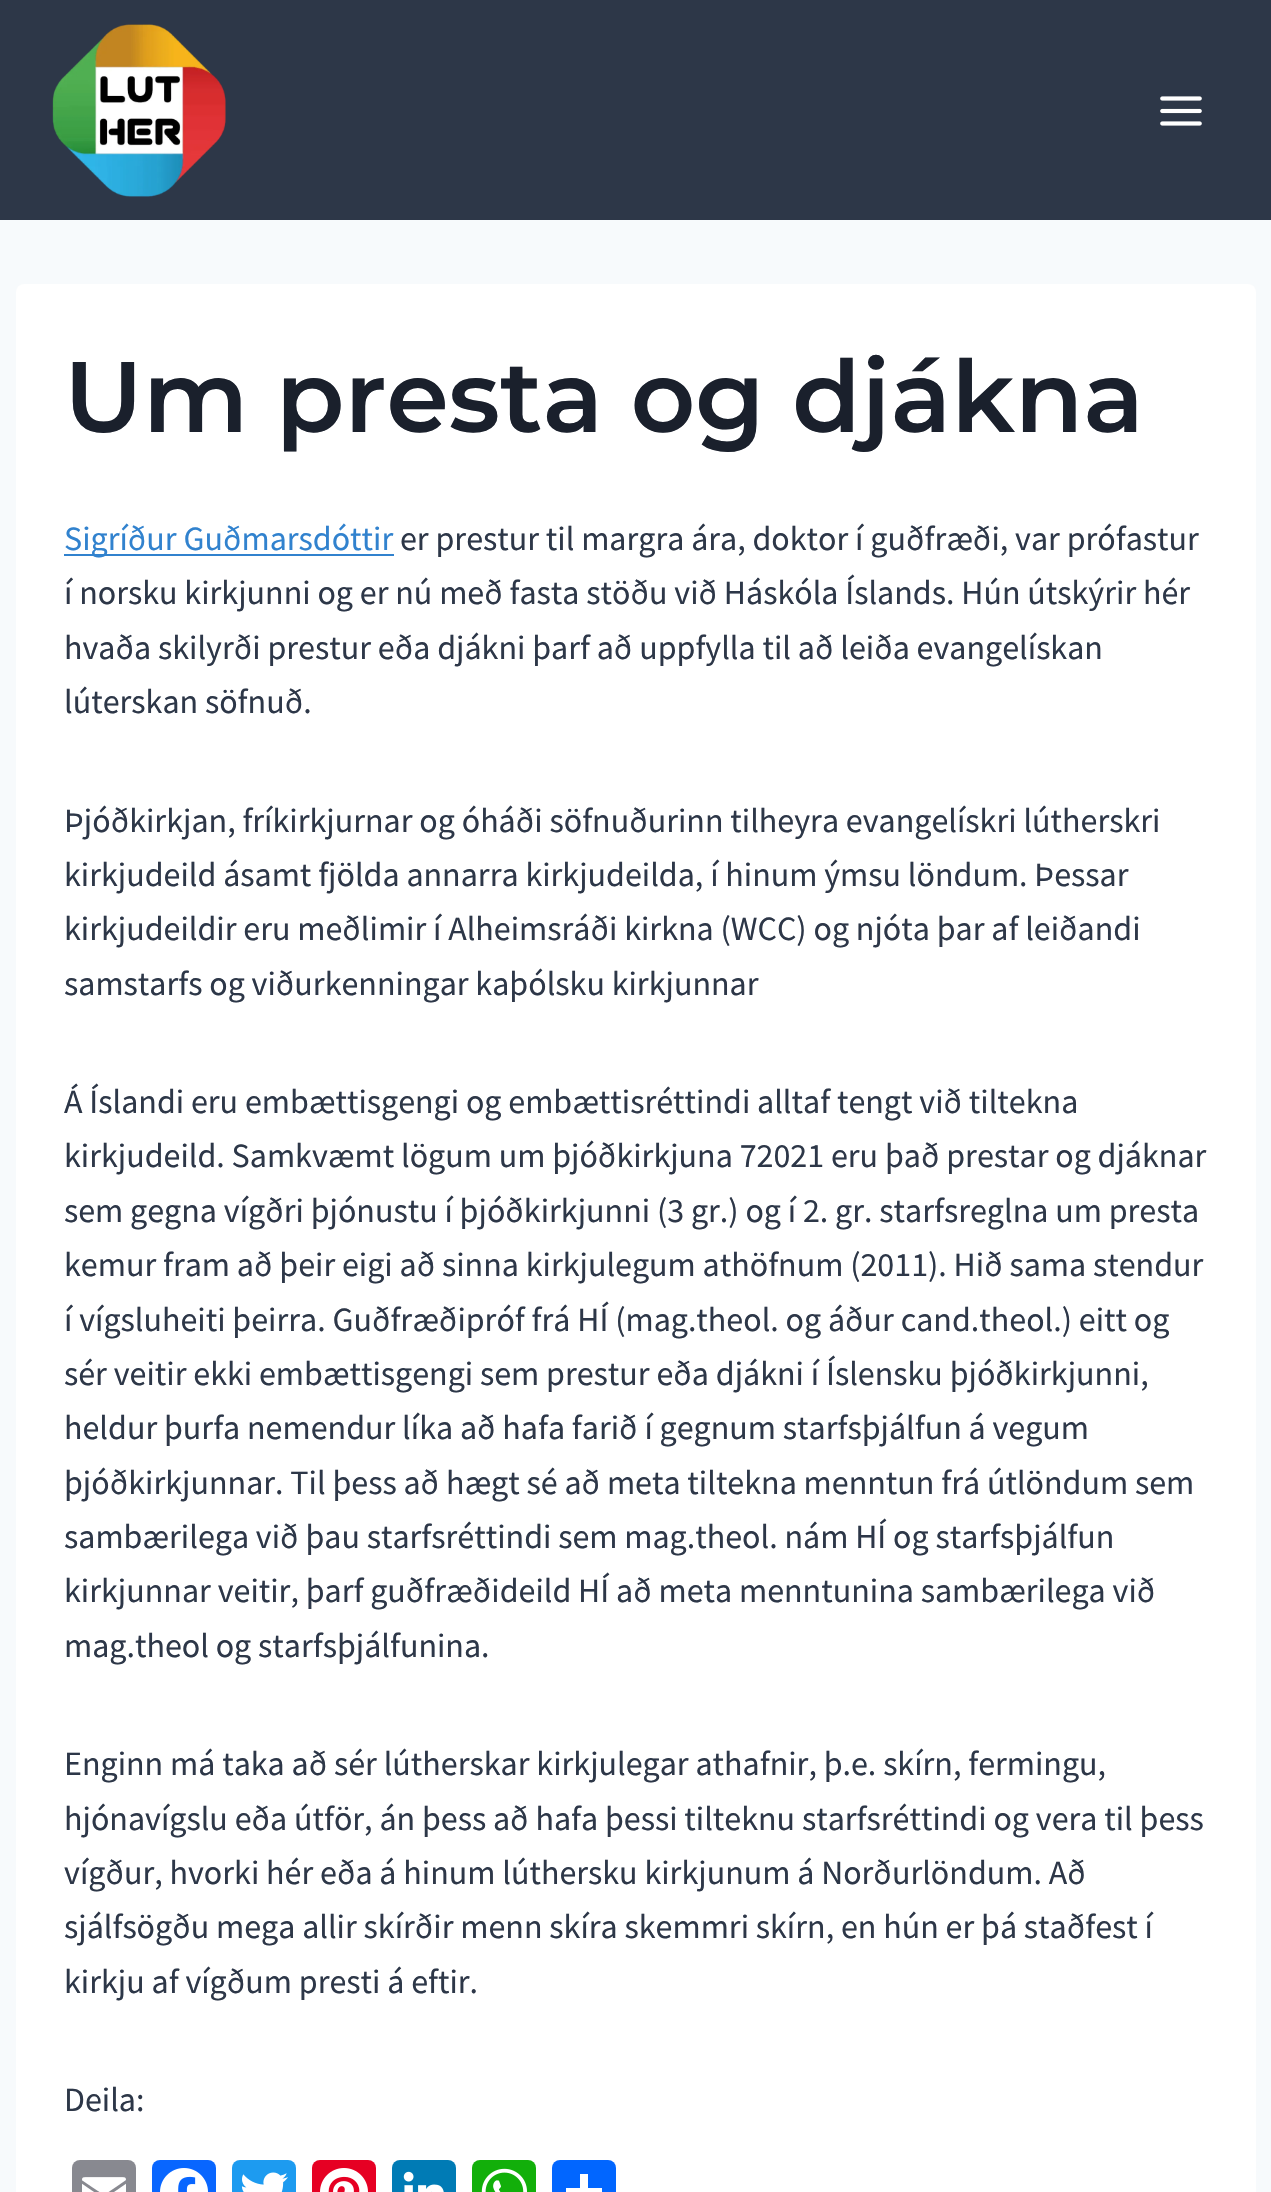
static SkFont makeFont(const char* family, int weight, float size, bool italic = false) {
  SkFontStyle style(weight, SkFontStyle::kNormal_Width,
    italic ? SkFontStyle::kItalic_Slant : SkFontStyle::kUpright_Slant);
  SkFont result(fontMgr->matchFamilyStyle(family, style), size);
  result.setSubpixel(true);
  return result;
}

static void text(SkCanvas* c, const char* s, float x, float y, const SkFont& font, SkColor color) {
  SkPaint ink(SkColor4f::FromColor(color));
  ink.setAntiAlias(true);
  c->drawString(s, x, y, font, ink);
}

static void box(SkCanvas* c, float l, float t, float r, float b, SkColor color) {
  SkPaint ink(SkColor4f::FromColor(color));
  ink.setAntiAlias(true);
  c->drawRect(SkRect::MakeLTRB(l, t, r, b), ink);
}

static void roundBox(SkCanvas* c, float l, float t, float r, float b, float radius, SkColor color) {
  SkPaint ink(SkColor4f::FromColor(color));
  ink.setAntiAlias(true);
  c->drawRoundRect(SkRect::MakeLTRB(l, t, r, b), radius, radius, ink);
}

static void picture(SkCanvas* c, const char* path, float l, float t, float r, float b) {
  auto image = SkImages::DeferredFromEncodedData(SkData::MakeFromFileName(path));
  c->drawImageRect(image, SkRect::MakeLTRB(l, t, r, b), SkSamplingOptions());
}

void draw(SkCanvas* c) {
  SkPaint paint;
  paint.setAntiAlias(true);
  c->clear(0xfff7fafc);
  box(c, 0, 0, 1271, 220, 0xff2d3748);
  picture(c, "img_01.png", 52, 24, 226, 197);
  picture(c, "img_02.png", 1160, 96, 1202, 126);
  roundBox(c, 16, 284, 1256, 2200, 8, 0xffffffff);
  SkFont face1 = makeFont("Montserrat", 100, 100);
  text(c, "Um presta og djákna", 64, 432, face1, 0xff1a202c);
  box(c, 64, 554, 394, 556, 0xff3182ce);
  SkFont face2 = makeFont("Source Sans Pro", 400, 34);
  text(c, "Sigríður Guðmarsdóttir", 64, 550, face2, 0xff3182ce);
  text(c, "er prestur til margra ára, doktor í guðfræði, var prófastur", 400, 550, face2, 0xff2d3748);
  text(c, "í norsku kirkjunni og er nú með fasta stöðu við Háskóla Íslands. Hún útskýrir hér", 64, 604, face2, 0xff2d3748);
  text(c, "hvaða skilyrði prestur eða djákni þarf að uppfylla til að leiða evangelískan", 64, 659, face2, 0xff2d3748);
  text(c, "lúterskan söfnuð.", 64, 713, face2, 0xff2d3748);
  text(c, "Þjóðkirkjan, fríkirkjurnar og óháði söfnuðurinn tilheyra evangelískri lútherskri", 64, 832, face2, 0xff2d3748);
  text(c, "kirkjudeild ásamt fjölda annarra kirkjudeilda, í hinum ýmsu löndum. Þessar", 64, 886, face2, 0xff2d3748);
  text(c, "kirkjudeildir eru meðlimir í Alheimsráði kirkna (WCC) og njóta þar af leiðandi", 64, 940, face2, 0xff2d3748);
  text(c, "samstarfs og viðurkenningar kaþólsku kirkjunnar", 64, 995, face2, 0xff2d3748);
  text(c, "Á Íslandi eru embættisgengi og embættisréttindi alltaf tengt við tiltekna", 64, 1113, face2, 0xff2d3748);
  text(c, "kirkjudeild. Samkvæmt lögum um þjóðkirkjuna 72021 eru það prestar og djáknar", 64, 1167, face2, 0xff2d3748);
  text(c, "sem gegna vígðri þjónustu í þjóðkirkjunni (3 gr.) og í 2. gr. starfsreglna um presta", 64, 1222, face2, 0xff2d3748);
  text(c, "kemur fram að þeir eigi að sinna kirkjulegum athöfnum (2011). Hið sama stendur", 64, 1276, face2, 0xff2d3748);
  text(c, "í vígsluheiti þeirra. Guðfræðipróf frá HÍ (mag.theol. og áður cand.theol.) eitt og", 64, 1331, face2, 0xff2d3748);
  text(c, "sér veitir ekki embættisgengi sem prestur eða djákni í Íslensku þjóðkirkjunni,", 64, 1385, face2, 0xff2d3748);
  text(c, "heldur þurfa nemendur líka að hafa farið í gegnum starfsþjálfun á vegum", 64, 1439, face2, 0xff2d3748);
  text(c, "þjóðkirkjunnar. Til þess að hægt sé að meta tiltekna menntun frá útlöndum sem", 64, 1494, face2, 0xff2d3748);
  text(c, "sambærilega við þau starfsréttindi sem mag.theol. nám HÍ og starfsþjálfun", 64, 1548, face2, 0xff2d3748);
  text(c, "kirkjunnar veitir, þarf guðfræðideild HÍ að meta menntunina sambærilega við", 64, 1602, face2, 0xff2d3748);
  text(c, "mag.theol og starfsþjálfunina.", 64, 1657, face2, 0xff2d3748);
  text(c, "Enginn má taka að sér lútherskar kirkjulegar athafnir, þ.e. skírn, fermingu,", 64, 1775, face2, 0xff2d3748);
  text(c, "hjónavígslu eða útför, án þess að hafa þessi tilteknu starfsréttindi og vera til þess", 64, 1830, face2, 0xff2d3748);
  text(c, "vígður, hvorki hér eða á hinum lúthersku kirkjunum á Norðurlöndum. Að", 64, 1884, face2, 0xff2d3748);
  text(c, "sjálfsögðu mega allir skírðir menn skíra skemmri skírn, en hún er þá staðfest í", 64, 1938, face2, 0xff2d3748);
  text(c, "kirkju af vígðum presti á eftir.", 64, 1993, face2, 0xff2d3748);
  text(c, "Deila:", 64, 2111, face2, 0xff2d3748);
  roundBox(c, 72, 2160, 136, 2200, 8, 0xff888990);
  picture(c, "img_03.png", 82, 2177, 126, 2192);
  roundBox(c, 152, 2160, 216, 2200, 8, 0xff0866ff);
  picture(c, "img_04.png", 160, 2168, 208, 2192);
  roundBox(c, 232, 2160, 296, 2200, 8, 0xff1d9bf0);
  picture(c, "img_05.png", 241, 2172, 288, 2192);
  roundBox(c, 312, 2160, 376, 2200, 8, 0xffe60023);
  picture(c, "img_06.png", 320, 2168, 368, 2192);
  roundBox(c, 392, 2160, 456, 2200, 8, 0xff007bb5);
  picture(c, "img_07.png", 403, 2171, 444, 2192);
  roundBox(c, 472, 2160, 536, 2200, 8, 0xff12af0a);
  picture(c, "img_08.png", 481, 2168, 527, 2192);
  roundBox(c, 552, 2160, 616, 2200, 8, 0xff0166ff);
  box(c, 580, 2174, 588, 2192, 0xffffffff);
  box(c, 566, 2188, 602, 2192, 0xffffffff);
}
